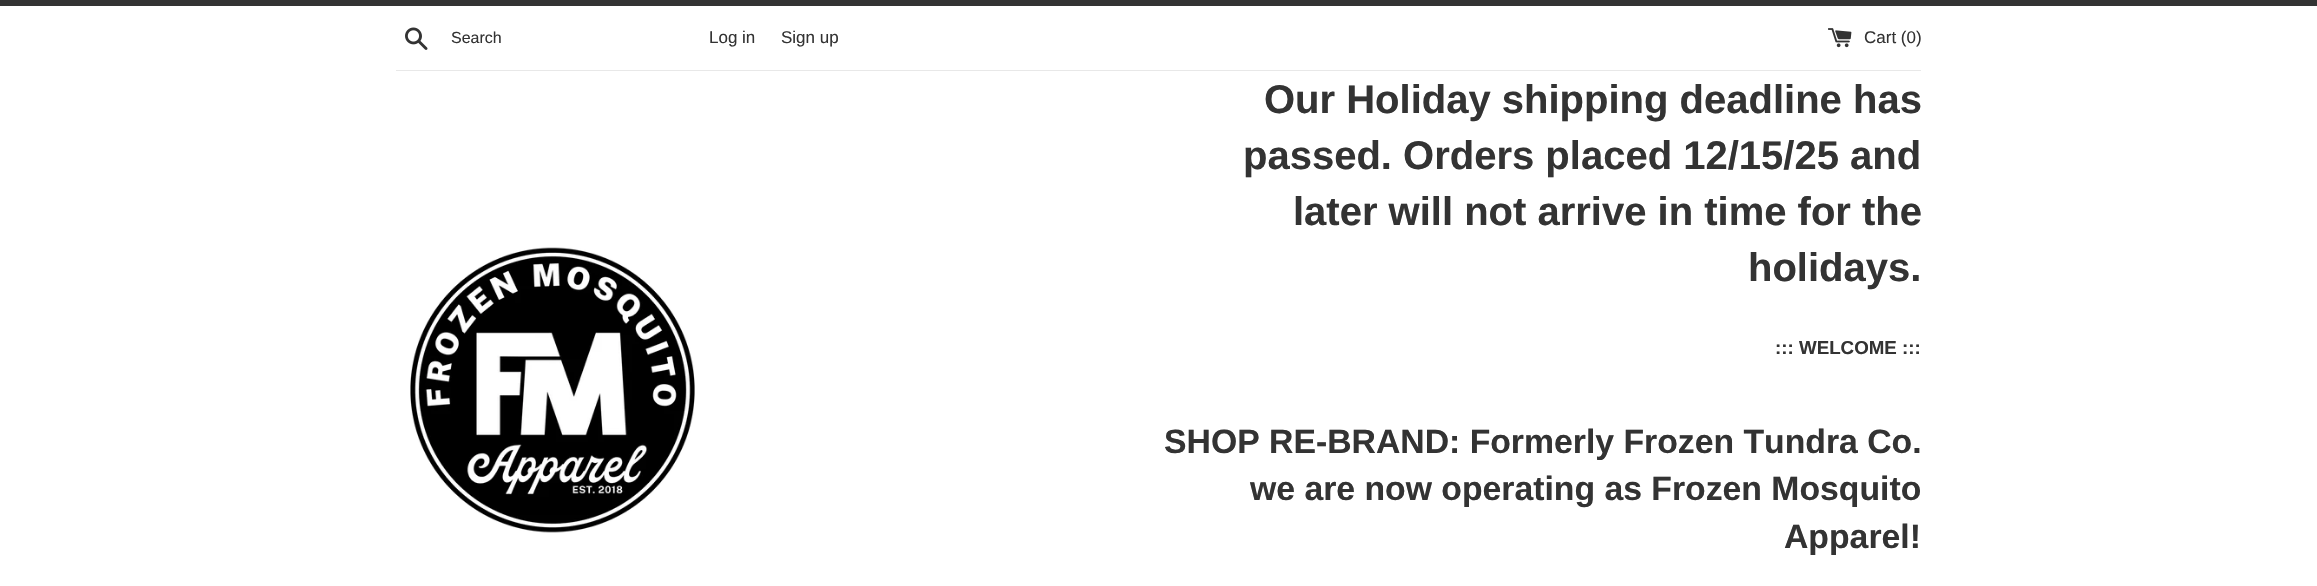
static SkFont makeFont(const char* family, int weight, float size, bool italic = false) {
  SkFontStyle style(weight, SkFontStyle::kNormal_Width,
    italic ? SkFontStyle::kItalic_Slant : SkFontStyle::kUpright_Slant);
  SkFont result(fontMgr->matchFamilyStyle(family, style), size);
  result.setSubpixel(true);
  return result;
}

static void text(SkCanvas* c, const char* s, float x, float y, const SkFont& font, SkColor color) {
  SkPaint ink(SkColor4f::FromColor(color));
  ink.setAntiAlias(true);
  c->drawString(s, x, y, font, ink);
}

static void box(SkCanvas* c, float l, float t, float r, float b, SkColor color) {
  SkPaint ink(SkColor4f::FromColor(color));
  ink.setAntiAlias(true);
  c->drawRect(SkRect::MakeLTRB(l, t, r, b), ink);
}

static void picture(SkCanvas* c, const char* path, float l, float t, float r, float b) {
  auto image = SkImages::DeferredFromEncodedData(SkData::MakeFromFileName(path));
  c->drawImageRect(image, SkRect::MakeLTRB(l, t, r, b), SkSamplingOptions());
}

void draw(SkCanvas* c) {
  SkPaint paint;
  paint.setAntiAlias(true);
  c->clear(0xffffffff);
  box(c, 0, 0, 2317, 6, 0xff333333);
  picture(c, "img_01.png", 405, 27, 428, 50);
  SkFont face1 = makeFont("Arimo", 400, 16);
  text(c, "Search", 451, 43, face1, 0xff333333);
  SkFont face2 = makeFont("Arimo", 400, 17);
  text(c, "Log in", 709, 43, face2, 0xff333333);
  text(c, "Sign up", 781, 43, face2, 0xff333333);
  picture(c, "img_02.png", 1828, 28, 1852, 48);
  text(c, "Cart (0)", 1864, 43, face2, 0xff333333);
  box(c, 396, 70, 1921, 71, 0xffe8e8e8);
  picture(c, "img_03.png", 410, 247, 695, 533);
  SkFont face3 = makeFont("Arimo", 700, 40);
  text(c, "Our Holiday shipping deadline has", 1264, 113, face3, 0xff333333);
  text(c, "passed. Orders placed 12/15/25 and", 1243, 169, face3, 0xff333333);
  text(c, "later will not arrive in time for the", 1293, 225, face3, 0xff333333);
  text(c, "holidays.", 1748, 281, face3, 0xff333333);
  SkFont face4 = makeFont("Arimo", 700, 18.75f);
  text(c, "::: WELCOME :::", 1775, 354, face4, 0xff333333);
  SkFont face5 = makeFont("Arimo", 700, 33.75f);
  text(c, "SHOP RE-BRAND: Formerly Frozen Tundra Co.", 1164, 453, face5, 0xff333333);
  text(c, "we are now operating as Frozen Mosquito", 1250, 500, face5, 0xff333333);
  text(c, "Apparel!", 1784, 548, face5, 0xff333333);
}
